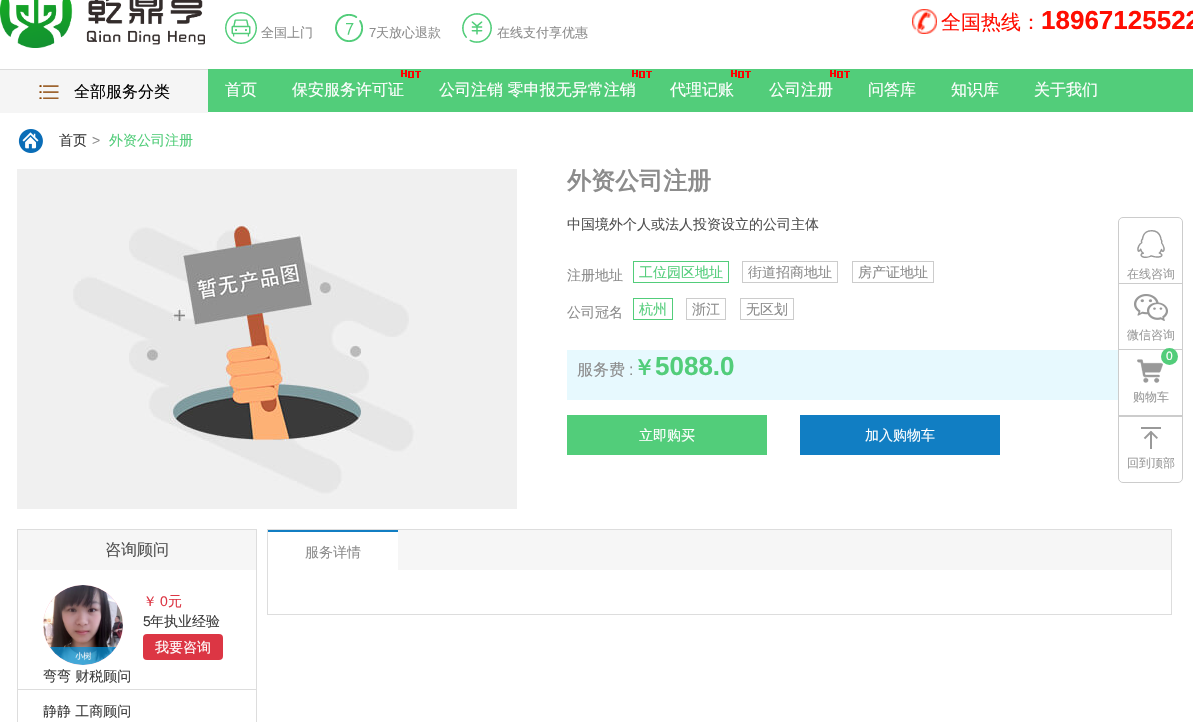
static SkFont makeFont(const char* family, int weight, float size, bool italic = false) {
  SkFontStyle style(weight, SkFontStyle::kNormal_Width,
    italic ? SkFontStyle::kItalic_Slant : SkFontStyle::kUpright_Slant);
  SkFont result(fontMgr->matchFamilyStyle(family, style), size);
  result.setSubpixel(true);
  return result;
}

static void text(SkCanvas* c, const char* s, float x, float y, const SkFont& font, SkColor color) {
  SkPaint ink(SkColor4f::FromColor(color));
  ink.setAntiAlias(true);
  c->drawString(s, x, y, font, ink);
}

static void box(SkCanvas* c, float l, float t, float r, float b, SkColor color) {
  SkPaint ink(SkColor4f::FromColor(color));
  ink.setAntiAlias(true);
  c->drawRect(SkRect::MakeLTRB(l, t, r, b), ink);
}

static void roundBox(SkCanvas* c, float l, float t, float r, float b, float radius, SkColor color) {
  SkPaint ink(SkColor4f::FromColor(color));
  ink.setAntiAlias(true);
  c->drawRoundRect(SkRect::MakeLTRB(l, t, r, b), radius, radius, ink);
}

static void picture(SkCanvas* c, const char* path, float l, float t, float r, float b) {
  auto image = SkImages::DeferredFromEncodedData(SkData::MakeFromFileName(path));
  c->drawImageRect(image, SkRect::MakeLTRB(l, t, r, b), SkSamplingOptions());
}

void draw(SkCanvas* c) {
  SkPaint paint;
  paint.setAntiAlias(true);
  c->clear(0xffffffff);
  picture(c, "img_01.png", 0, 0, 205, 48);
  picture(c, "img_02.png", 225, 12, 257, 44);
  SkFont face1 = makeFont("WenQuanYi Zen Hei", 500, 13);
  text(c, "全国上门", 261, 37, face1, 0xff8c8c8c);
  picture(c, "img_03.png", 335, 14, 364, 42);
  SkFont face2 = makeFont("Liberation Sans", 400, 13);
  text(c, "7", 369, 37, face2, 0xff8c8c8c);
  text(c, "天放心退款", 376, 37, face1, 0xff8c8c8c);
  picture(c, "img_04.png", 462, 13, 492, 43);
  text(c, "在线支付享优惠", 497, 37, face1, 0xff8c8c8c);
  picture(c, "img_05.png", 912, 9, 937, 34);
  SkFont face3 = makeFont("WenQuanYi Zen Hei", 500, 20);
  text(c, "全国热线：", 941, 29, face3, 0xffff0e02);
  SkFont face4 = makeFont("Liberation Sans", 700, 26);
  text(c, "18967125522", 1041, 29, face4, 0xffff0e02);
  box(c, 208, 69, 1193, 112, 0xff52cd7a);
  box(c, 0, 70, 208, 113, 0xfff5f5f5);
  box(c, 0, 69, 208, 70, 0xffdcdcdc);
  picture(c, "img_06.png", 39, 85, 59, 99);
  SkFont face5 = makeFont("WenQuanYi Zen Hei", 500, 16);
  text(c, "全部服务分类", 74, 97, face5, 0xff000000);
  text(c, "首页", 225, 95, face5, 0xffffffff);
  picture(c, "img_07.png", 401, 70, 421, 78);
  text(c, "保安服务许可证", 292, 95, face5, 0xffffffff);
  picture(c, "img_07.png", 632, 70, 652, 78);
  text(c, "公司注销 零申报无异常注销", 439, 95, face5, 0xffffffff);
  picture(c, "img_07.png", 731, 70, 751, 78);
  text(c, "代理记账", 670, 95, face5, 0xffffffff);
  picture(c, "img_07.png", 830, 70, 850, 78);
  text(c, "公司注册", 769, 95, face5, 0xffffffff);
  text(c, "问答库", 868, 95, face5, 0xffffffff);
  text(c, "知识库", 951, 95, face5, 0xffffffff);
  text(c, "关于我们", 1034, 95, face5, 0xffffffff);
  picture(c, "img_08.png", 18, 129, 43, 153);
  SkFont face6 = makeFont("WenQuanYi Zen Hei", 500, 14);
  text(c, "首页", 59, 145, face6, 0xff3c3c3c);
  SkFont face7 = makeFont("Liberation Sans", 400, 14);
  text(c, ">", 92, 145, face7, 0xff8c8c8c);
  text(c, "外资公司注册", 109, 145, face6, 0xff52cd7a);
  picture(c, "img_09.png", 17, 169, 517, 509);
  SkFont face8 = makeFont("WenQuanYi Zen Hei", 700, 24);
  text(c, "外资公司注册", 567, 189, face8, 0xff8c8c8c);
  text(c, "中国境外个人或法人投资设立的公司主体", 567, 229, face6, 0xff505050);
  text(c, "注册地址", 567, 280, face6, 0xff8c8c8c);
  paint.setStyle(SkPaint::kStroke_Style);
  paint.setStrokeWidth(1);
  paint.setColor(0xff52cd7a);
  c->drawRect(SkRect::MakeLTRB(633.5f, 261.5f, 728.5f, 282.5f), paint);
  text(c, "工位园区地址", 639, 277, face6, 0xff52cd7a);
  paint.setColor(0xffcccccc);
  c->drawRect(SkRect::MakeLTRB(742.5f, 261.5f, 837.5f, 282.5f), paint);
  text(c, "街道招商地址", 748, 277, face6, 0xff8c8c8c);
  c->drawRect(SkRect::MakeLTRB(852.5f, 261.5f, 933.5f, 282.5f), paint);
  text(c, "房产证地址", 858, 277, face6, 0xff8c8c8c);
  text(c, "公司冠名", 567, 317, face6, 0xff8c8c8c);
  paint.setColor(0xff52cd7a);
  c->drawRect(SkRect::MakeLTRB(633.5f, 298.5f, 672.5f, 319.5f), paint);
  text(c, "杭州", 639, 314, face6, 0xff52cd7a);
  paint.setColor(0xffcccccc);
  c->drawRect(SkRect::MakeLTRB(686.5f, 298.5f, 725.5f, 319.5f), paint);
  text(c, "浙江", 692, 314, face6, 0xff8c8c8c);
  c->drawRect(SkRect::MakeLTRB(740.5f, 298.5f, 793.5f, 319.5f), paint);
  text(c, "无区划", 746, 314, face6, 0xff8c8c8c);
  box(c, 567, 350, 1118, 400, 0xffe7f9fe);
  text(c, "服务费", 577, 375, face5, 0xff8c8c8c);
  SkFont face9 = makeFont("Liberation Sans", 400, 16);
  text(c, ":", 629, 375, face9, 0xff8c8c8c);
  SkFont face10 = makeFont("WenQuanYi Zen Hei", 700, 22);
  text(c, "￥", 633, 375, face10, 0xff52cd7a);
  text(c, "5088.0", 655, 375, face4, 0xff52cd7a);
  box(c, 567, 415, 767, 455, 0xff52cd7a);
  text(c, "立即购买", 639, 440, face6, 0xffffffff);
  box(c, 800, 415, 1000, 455, 0xff117ec3);
  text(c, "加入购物车", 865, 440, face6, 0xffffffff);
  paint.setColor(0xffdddddd);
  c->drawRect(SkRect::MakeLTRB(17.5f, 529.5f, 256.5f, 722.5f), paint);
  box(c, 18, 530, 256, 570, 0xfff6f6f6);
  text(c, "咨询顾问", 105, 555, face5, 0xff505050);
  box(c, 18, 689, 256, 690, 0xffdddddd);
  paint.setStyle(SkPaint::kFill_Style);
  paint.setColor(0xffffc0cb);
  c->drawCircle(83, 625, 40, paint);
  picture(c, "img_10.png", 43, 585, 123, 665);
  text(c, "￥", 143, 606, face6, 0xffdc3644);
  text(c, "0", 160, 606, face7, 0xffdc3644);
  text(c, "元", 168, 606, face6, 0xffdc3644);
  text(c, "5", 143, 626, face7, 0xff3c3c3c);
  text(c, "年执业经验", 150, 626, face6, 0xff3c3c3c);
  roundBox(c, 143, 634, 223, 660, 4, 0xffdc3644);
  text(c, "我要咨询", 155, 652, face6, 0xffffffff);
  text(c, "弯弯 财税顾问", 43, 681, face6, 0xff3c3c3c);
  text(c, "静静 工商顾问", 43, 716, face6, 0xff3c3c3c);
  paint.setStyle(SkPaint::kStroke_Style);
  paint.setColor(0xffdddddd);
  c->drawRect(SkRect::MakeLTRB(267.5f, 529.5f, 1171.5f, 614.5f), paint);
  box(c, 398, 530, 1171, 570, 0xfff6f6f6);
  box(c, 268, 530, 398, 532, 0xff117ec3);
  text(c, "服务详情", 305, 557, face6, 0xff8c8c8c);
  paint.setColor(0xffcccccc);
  c->drawRoundRect(SkRect::MakeLTRB(1118.5f, 217.5f, 1182.5f, 482.5f), 4.5f, 4.5f, paint);
  box(c, 1119, 283, 1182, 284, 0xffcccccc);
  picture(c, "img_11.png", 1137, 230, 1165, 258);
  SkFont face11 = makeFont("WenQuanYi Zen Hei", 500, 12);
  text(c, "在线咨询", 1127, 278, face11, 0xff999999);
  box(c, 1119, 349, 1182, 350, 0xffcccccc);
  picture(c, "img_12.png", 1134, 294, 1168, 321);
  text(c, "微信咨询", 1127, 339, face11, 0xff999999);
  box(c, 1119, 415, 1182, 417, 0xffcccccc);
  picture(c, "img_13.png", 1137, 359, 1163, 383);
  paint.setStyle(SkPaint::kFill_Style);
  paint.setColor(0xff52cd7a);
  c->drawCircle(1169.5f, 356.5f, 8.5f, paint);
  SkFont face12 = makeFont("Liberation Sans", 400, 12);
  text(c, "0", 1166, 360, face12, 0xffffffff);
  text(c, "购物车", 1133, 401, face11, 0xff999999);
  picture(c, "img_14.png", 1141, 427, 1161, 449);
  text(c, "回到顶部", 1127, 467, face11, 0xff999999);
}
